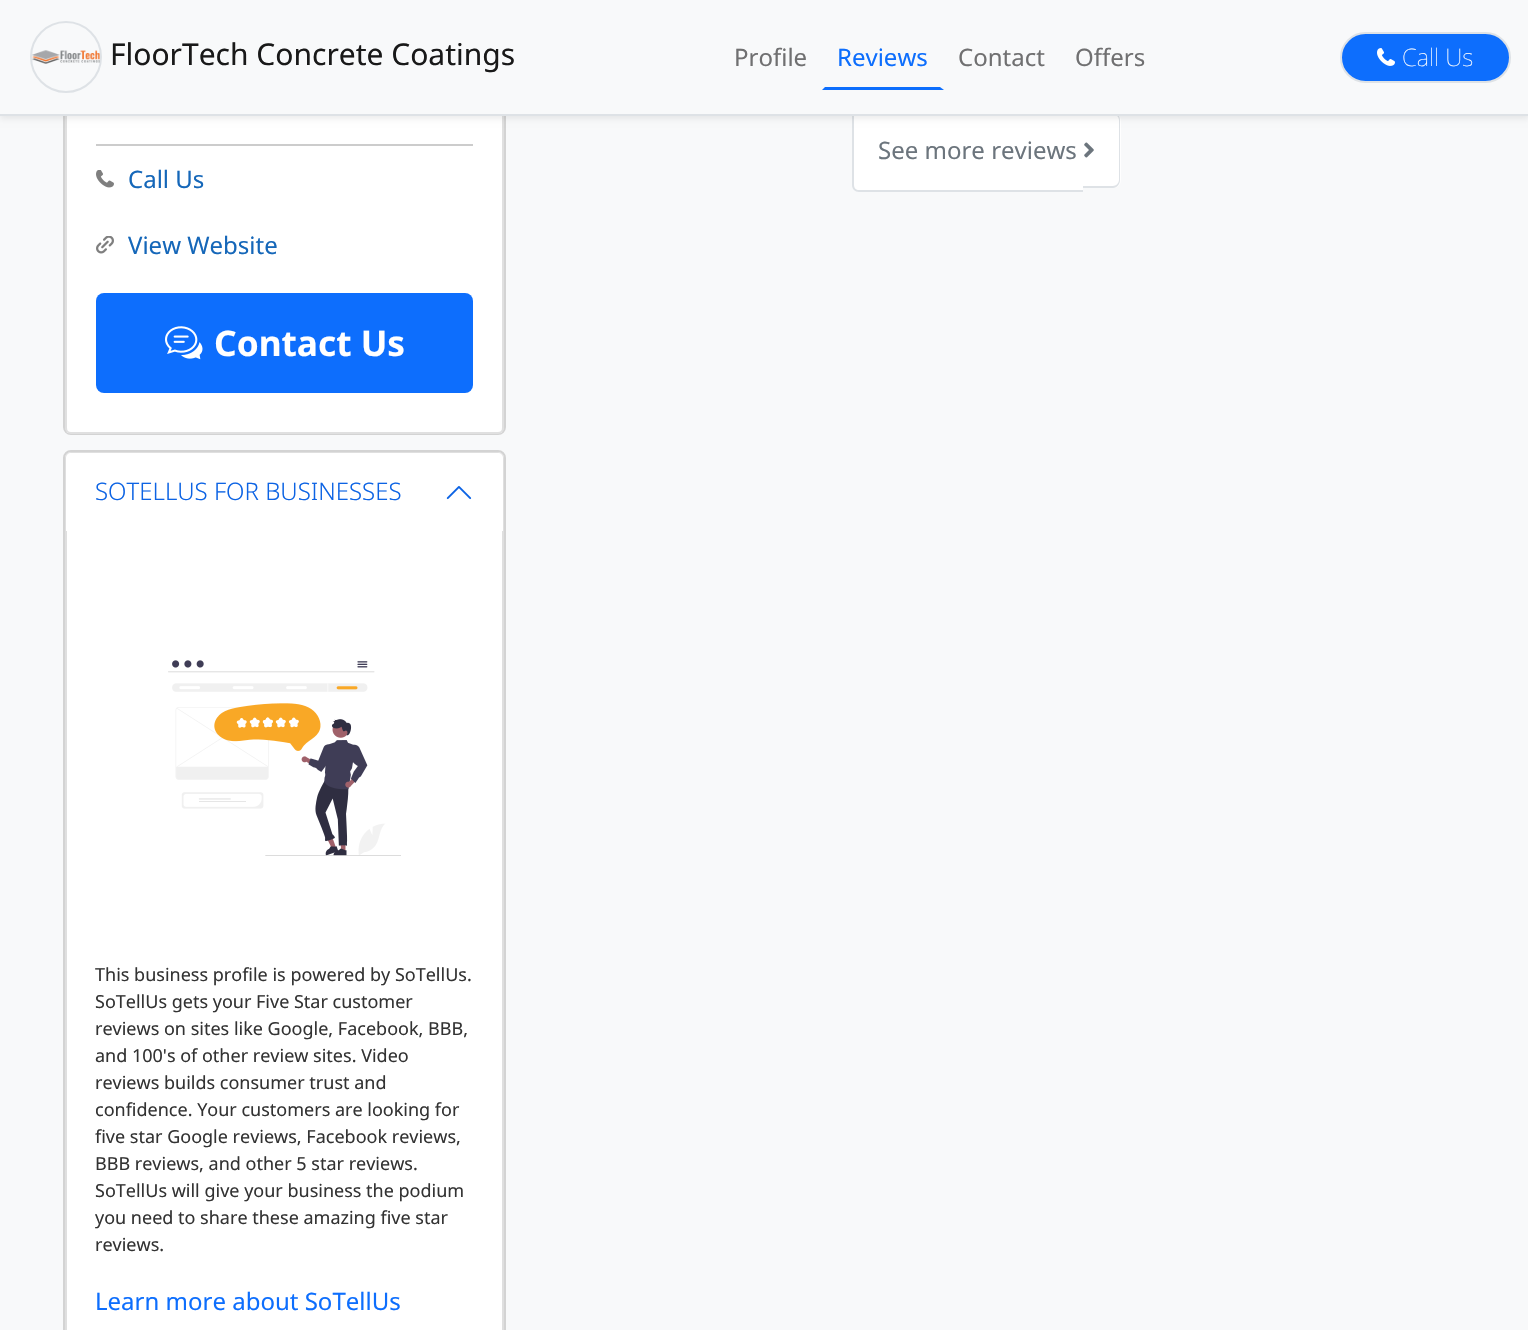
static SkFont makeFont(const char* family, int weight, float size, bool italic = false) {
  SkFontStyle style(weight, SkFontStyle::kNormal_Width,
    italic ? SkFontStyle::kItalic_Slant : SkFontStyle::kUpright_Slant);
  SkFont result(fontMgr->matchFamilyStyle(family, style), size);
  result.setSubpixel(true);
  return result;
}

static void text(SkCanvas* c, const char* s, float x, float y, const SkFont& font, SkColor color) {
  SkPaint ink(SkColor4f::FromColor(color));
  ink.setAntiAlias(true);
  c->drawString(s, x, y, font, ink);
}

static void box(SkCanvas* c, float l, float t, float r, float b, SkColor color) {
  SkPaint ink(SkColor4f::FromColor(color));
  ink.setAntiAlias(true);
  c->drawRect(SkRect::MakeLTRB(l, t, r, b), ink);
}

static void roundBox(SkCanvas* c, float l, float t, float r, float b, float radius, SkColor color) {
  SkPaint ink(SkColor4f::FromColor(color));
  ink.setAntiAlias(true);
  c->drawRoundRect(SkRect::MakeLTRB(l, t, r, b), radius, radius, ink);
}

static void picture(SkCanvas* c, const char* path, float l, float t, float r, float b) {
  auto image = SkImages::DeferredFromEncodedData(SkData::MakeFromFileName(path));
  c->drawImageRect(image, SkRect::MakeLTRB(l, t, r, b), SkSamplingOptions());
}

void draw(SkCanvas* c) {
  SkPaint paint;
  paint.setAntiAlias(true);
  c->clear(0xfff8f9fa);
  paint.setColor(0xffffffff);
  c->drawPath(SkPathBuilder().moveTo(860, 108).lineTo(1083, 108).lineTo(1083, 192).lineTo(860, 192).cubicTo(855.5f, 192, 852, 188.5f, 852, 184).lineTo(852, 116).cubicTo(852, 111.5f, 855.5f, 108, 860, 108).close().detach(), paint);
  paint.setColor(0xffdee2e6);
  c->drawPath(SkPathBuilder(SkPathFillType::kEvenOdd).moveTo(859, 108).lineTo(1083, 108).lineTo(1083, 192).lineTo(859, 192).cubicTo(855, 192, 852, 189, 852, 185).lineTo(852, 115).cubicTo(852, 111, 855, 108, 859, 108).close().moveTo(859, 110).lineTo(1083, 110).lineTo(1083, 190).lineTo(859, 190).cubicTo(856, 190, 854, 188, 854, 185).lineTo(854, 115).cubicTo(854, 112, 856, 110, 859, 110).close().detach(), paint);
  paint.setColor(0xffffffff);
  c->drawPath(SkPathBuilder().moveTo(1083, 113).lineTo(1113, 113).cubicTo(1117.5f, 113, 1121, 116.5f, 1121, 121).lineTo(1121, 180).cubicTo(1121, 184.5f, 1117.5f, 188, 1113, 188).lineTo(1083, 188).close().detach(), paint);
  paint.setColor(0xffdee2e6);
  c->drawPath(SkPathBuilder(SkPathFillType::kEvenOdd).moveTo(1083, 112).lineTo(1113, 112).cubicTo(1117, 112, 1120, 116, 1120, 120).lineTo(1120, 180).cubicTo(1120, 184, 1117, 188, 1113, 188).lineTo(1083, 188).close().moveTo(1083, 114).lineTo(1113, 114).cubicTo(1116, 114, 1119, 117, 1119, 120).lineTo(1119, 180).cubicTo(1119, 183, 1116, 186, 1113, 186).lineTo(1083, 186).close().detach(), paint);
  paint.setStyle(SkPaint::kStroke_Style);
  paint.setStrokeWidth(2);
  paint.setColor(0xffd3d3d3);
  c->drawRoundRect(SkRect::MakeLTRB(64, -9, 505, 434), 7, 7, paint);
  roundBox(c, 65, -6, 504, 434, 6, 0xffffffff);
  paint.setColor(0x1f000000);
  c->drawRoundRect(SkRect::MakeLTRB(66, -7, 503, 433), 5, 5, paint);
  paint.setStyle(SkPaint::kFill_Style);
  paint.setColor(0x12000000);
  paint.setMaskFilter(SkMaskFilter::MakeBlur(kNormal_SkBlurStyle, 3));
  c->drawRect(SkRect::MakeLTRB(0, 3, 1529, 119), paint);
  paint.setMaskFilter(nullptr);
  box(c, 0, 0, 1528, 114, 0xfff8f9fa);
  box(c, 0, 114, 1528, 116, 0xffdee2e6);
  paint.setStyle(SkPaint::kStroke_Style);
  paint.setColor(0xffdee2e6);
  c->drawCircle(66, 57, 35, paint);
  SkFont face1 = makeFont("Noto Sans", 400, 30);
  text(c, "FloorTech Concrete Coatings", 110, 65, face1, 0xff191919);
  picture(c, "img_01.png", 32, 50, 100, 64);
  SkFont face2 = makeFont("Noto Sans", 400, 24);
  text(c, "Profile", 734, 66, face2, 0xff707071);
  paint.setStyle(SkPaint::kFill_Style);
  paint.setColor(0xff0d6efd);
  c->drawPath(SkPathBuilder().moveTo(944, 90).lineTo(822, 90).lineTo(825, 87).lineTo(940, 87).close().detach(), paint);
  text(c, "Reviews", 837, 66, face2, 0xff0d6efd);
  text(c, "Contact", 958, 66, face2, 0xff707071);
  text(c, "Offers", 1075, 66, face2, 0xff707071);
  c->drawRoundRect(SkRect::MakeLTRB(1341, 33, 1510, 82), 24.5f, 24.5f, paint);
  paint.setStyle(SkPaint::kStroke_Style);
  paint.setColor(0xffdee2e6);
  c->drawRoundRect(SkRect::MakeLTRB(1341, 33, 1510, 82), 24.5f, 24.5f, paint);
  picture(c, "img_02.png", 1377, 48, 1395, 66);
  SkFont face3 = makeFont("Noto Sans", 100, 24);
  text(c, "Call Us", 1402, 66, face3, 0xffffffff);
  text(c, "See more reviews", 878, 159, face2, 0xff6c757d);
  picture(c, "img_03.png", 1084, 142, 1094, 158);
  box(c, 96, 144, 473, 146, 0xffcccccc);
  picture(c, "img_04.png", 96, 170, 114, 188);
  text(c, "Call Us", 128, 188, face2, 0xff1567b9);
  picture(c, "img_05.png", 96, 236, 114, 254);
  text(c, "View Website", 128, 254, face2, 0xff1567b9);
  roundBox(c, 96, 293, 473, 393, 8, 0xff0d6efd);
  picture(c, "img_06.png", 165, 326, 203, 360);
  SkFont face4 = makeFont("Noto Sans", 700, 35.25f);
  text(c, "Contact Us", 214, 356, face4, 0xffffffff);
  paint.setColor(0xffd3d3d3);
  c->drawRoundRect(SkRect::MakeLTRB(64, 451, 505, 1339), 7, 7, paint);
  paint.setStyle(SkPaint::kFill_Style);
  paint.setColor(0xffffffff);
  c->drawRoundRect(SkRect::MakeLTRB(66, 453, 503, 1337), 5, 5, paint);
  paint.setStyle(SkPaint::kStroke_Style);
  paint.setColor(0xffdfdfdf);
  c->drawRoundRect(SkRect::MakeLTRB(66, 453, 503, 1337), 5, 5, paint);
  paint.setStyle(SkPaint::kFill_Style);
  paint.setColor(0xffffffff);
  c->drawPath(SkPathBuilder().moveTo(71, 453).lineTo(498, 453).cubicTo(501, 453, 503, 455, 503, 458).lineTo(503, 531).lineTo(66, 531).lineTo(66, 458).cubicTo(66, 455, 68, 453, 71, 453).close().detach(), paint);
  SkFont face5 = makeFont("Noto Sans", 300, 24);
  text(c, "SOTELLUS FOR BUSINESSES", 95, 500, face5, 0xff0c63e4);
  picture(c, "img_07.png", 446, 486, 472, 500);
  picture(c, "img_08.png", 168, 660, 401, 856);
  SkFont face6 = makeFont("Noto Sans", 400, 18);
  text(c, "This business profile is powered by SoTellUs.", 95, 981, face6, 0xff333333);
  text(c, "SoTellUs gets your Five Star customer", 95, 1008, face6, 0xff333333);
  text(c, "reviews on sites like Google, Facebook, BBB,", 95, 1035, face6, 0xff333333);
  text(c, "and 100's of other review sites. Video", 95, 1062, face6, 0xff333333);
  text(c, "reviews builds consumer trust and", 95, 1089, face6, 0xff333333);
  text(c, "confidence. Your customers are looking for", 95, 1116, face6, 0xff333333);
  text(c, "five star Google reviews, Facebook reviews,", 95, 1143, face6, 0xff333333);
  text(c, "BBB reviews, and other 5 star reviews.", 95, 1170, face6, 0xff333333);
  text(c, "SoTellUs will give your business the podium", 95, 1197, face6, 0xff333333);
  text(c, "you need to share these amazing five star", 95, 1224, face6, 0xff333333);
  text(c, "reviews.", 95, 1251, face6, 0xff333333);
  text(c, "Learn more about SoTellUs", 95, 1310, face2, 0xff0d6efd);
}
